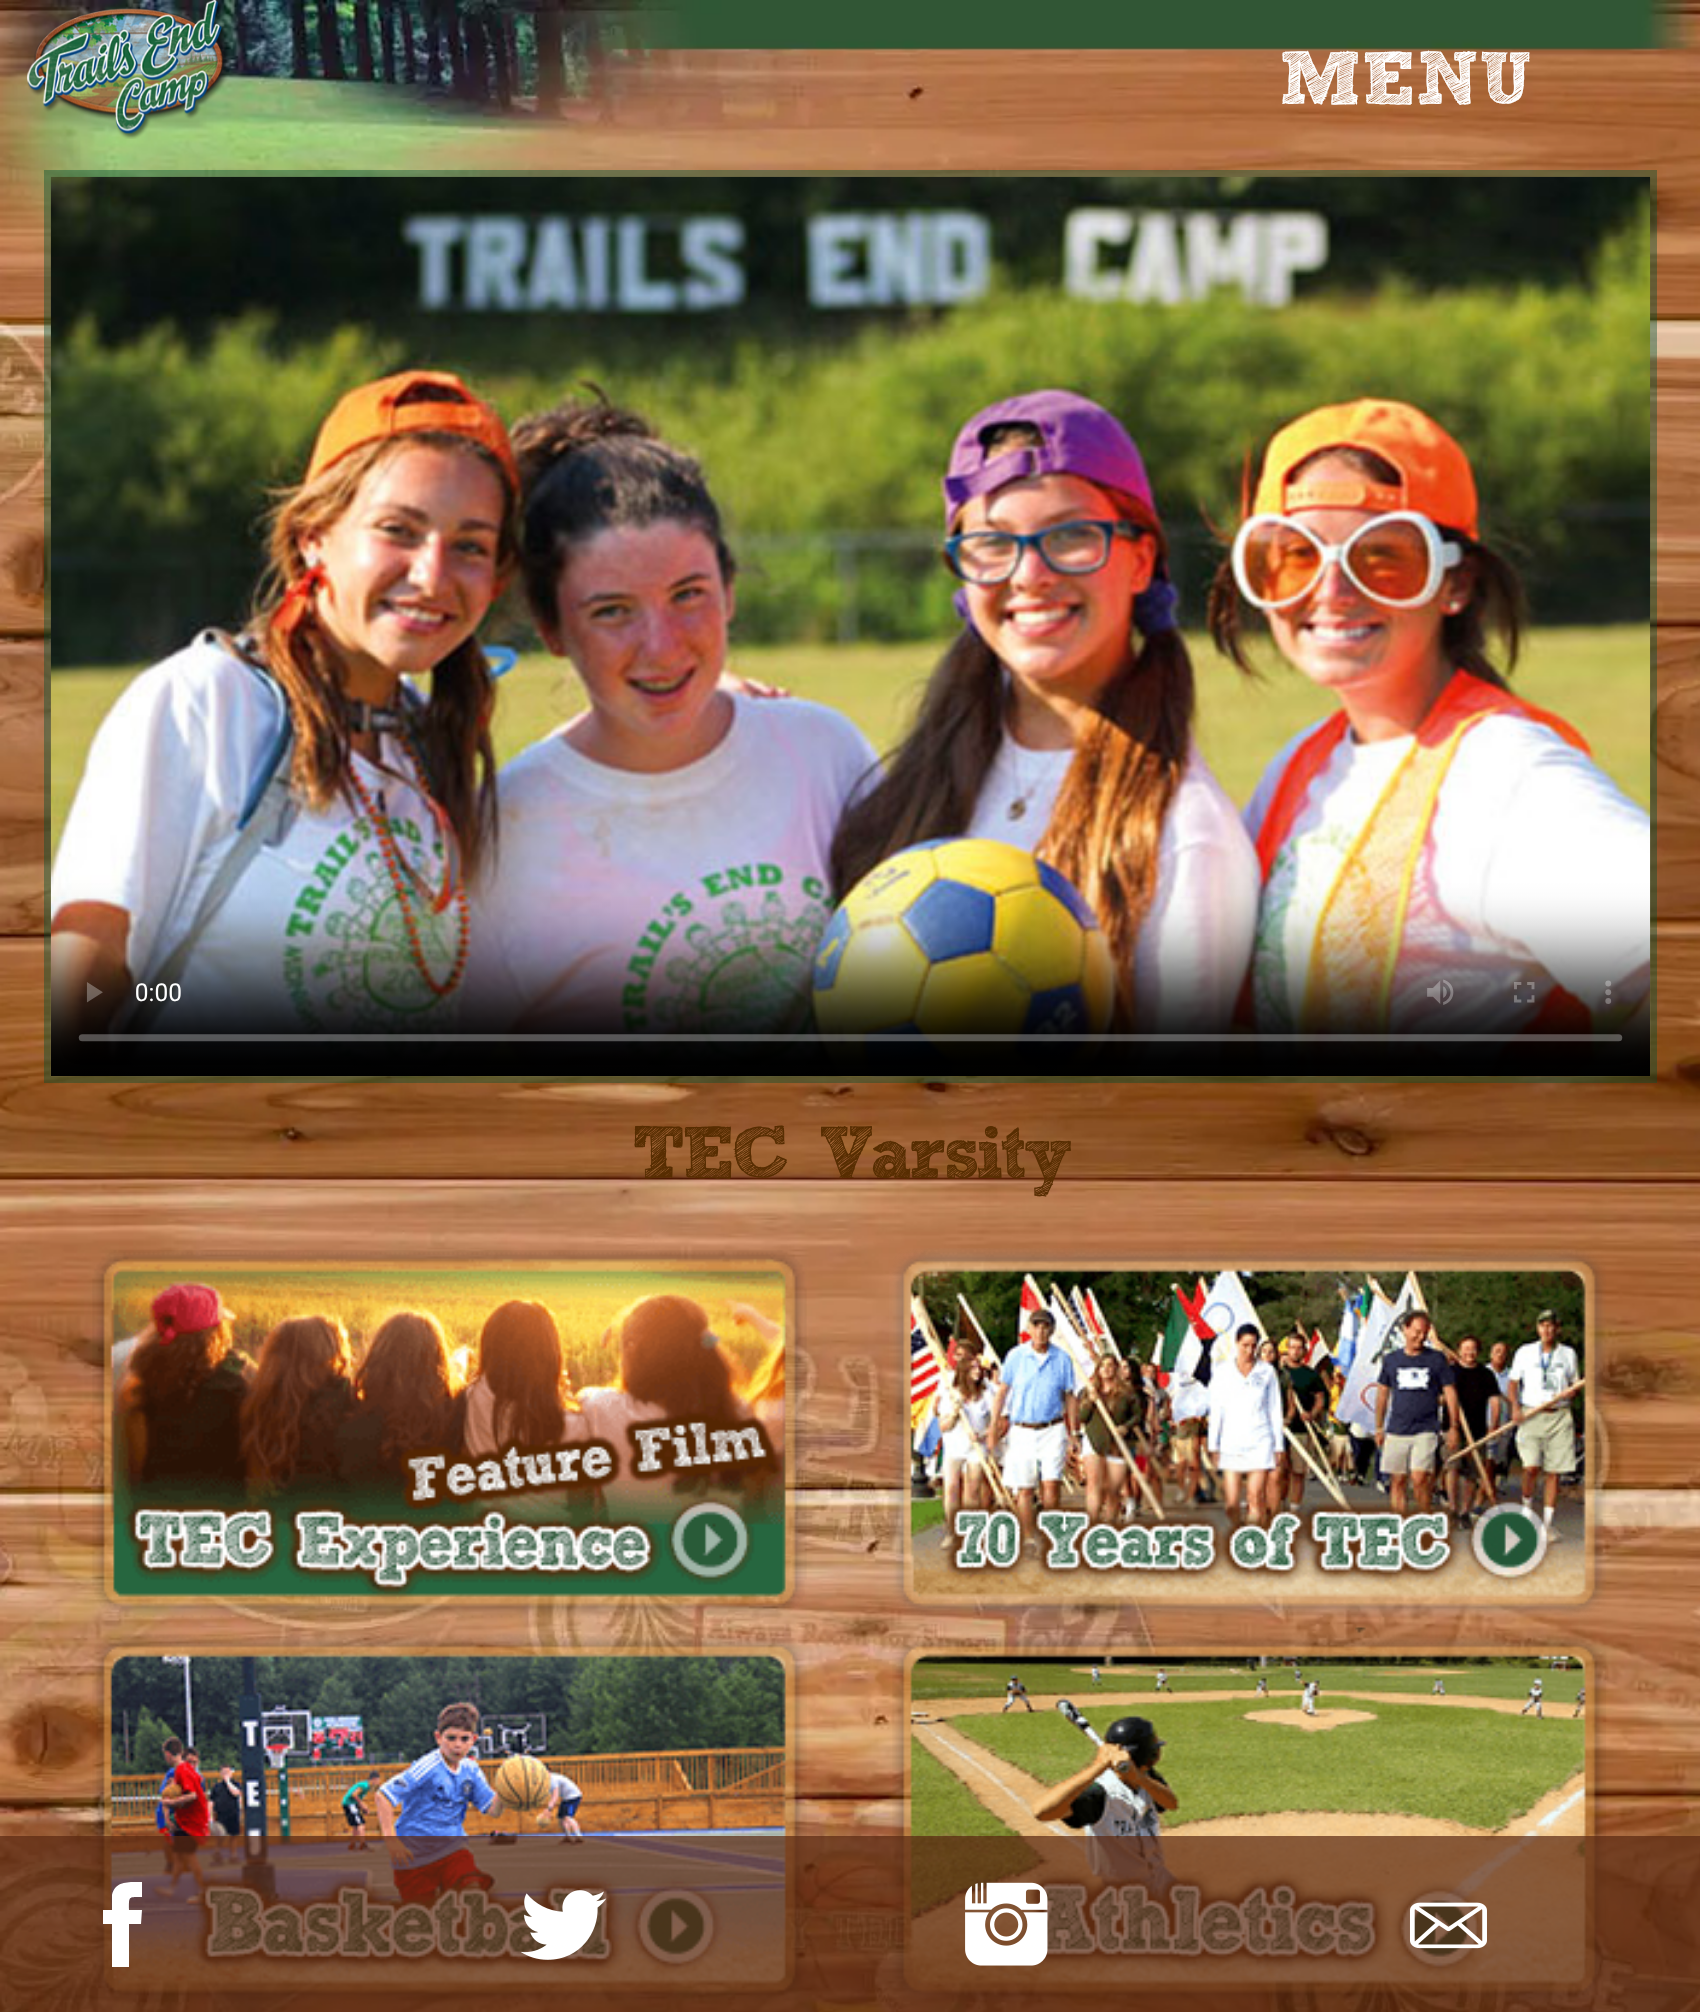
static SkFont makeFont(const char* family, int weight, float size, bool italic = false) {
  SkFontStyle style(weight, SkFontStyle::kNormal_Width,
    italic ? SkFontStyle::kItalic_Slant : SkFontStyle::kUpright_Slant);
  SkFont result(fontMgr->matchFamilyStyle(family, style), size);
  result.setSubpixel(true);
  return result;
}

static void text(SkCanvas* c, const char* s, float x, float y, const SkFont& font, SkColor color) {
  SkPaint ink(SkColor4f::FromColor(color));
  ink.setAntiAlias(true);
  c->drawString(s, x, y, font, ink);
}

static void spacedText(SkCanvas* c, const char* s, float x, float y, const SkFont& font, const SkPaint& ink, float letter, float word) {
  std::vector<SkGlyphID> glyphs(font.countText(s, strlen(s), SkTextEncoding::kUTF8));
  std::vector<float> xs(glyphs.size());
  font.textToGlyphs(s, strlen(s), SkTextEncoding::kUTF8, glyphs);
  font.getXPos(glyphs, xs, x);
  float extra = 0;
  for (size_t i = 0; i < glyphs.size(); i++) {
    xs[i] += extra;
    extra += letter + word * (glyphs[i] == font.unicharToGlyph(' '));
  }
  c->drawTextBlob(SkTextBlob::MakeFromPosHGlyphs(glyphs, xs, y, font), 0, 0, ink);
}

static void box(SkCanvas* c, float l, float t, float r, float b, SkColor color) {
  SkPaint ink(SkColor4f::FromColor(color));
  ink.setAntiAlias(true);
  c->drawRect(SkRect::MakeLTRB(l, t, r, b), ink);
}

static void picture(SkCanvas* c, const char* path, float l, float t, float r, float b) {
  auto image = SkImages::DeferredFromEncodedData(SkData::MakeFromFileName(path));
  c->drawImageRect(image, SkRect::MakeLTRB(l, t, r, b), SkSamplingOptions());
}

void draw(SkCanvas* c) {
  SkPaint paint;
  paint.setAntiAlias(true);
  c->clear(0xffffffff);
  picture(c, "img_01.png", 0, 0, 1700, 2012);
  picture(c, "img_02.png", 27, 0, 229, 139);
  SkFont face1 = makeFont("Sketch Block", 700, 74.5f);
  text(c, "MENU", 1279, 104, face1, 0xffffffff);
  paint.setStyle(SkPaint::kStroke_Style);
  paint.setStrokeWidth(7);
  paint.setColor(0x66004e2f);
  c->drawRect(SkRect::MakeLTRB(47.5f, 173.5f, 1653.5f, 1079.5f), paint);
  picture(c, "img_03.png", 50, 176, 1651, 1077);
  SkFont face2 = makeFont("Sketch Block", 700, 73.5f);
  paint.setStyle(SkPaint::kFill_Style);
  paint.setColor(0xff572d01);
  spacedText(c, "TEC Varsity", 632, 1178, face2, paint, -3.5f, 0);
  picture(c, "img_04.png", 92, 1250, 807, 1618);
  picture(c, "img_05.png", 889, 1248, 1606, 1617);
  picture(c, "img_06.png", 92, 1634, 807, 2004);
  picture(c, "img_07.png", 892, 1627, 1606, 2003);
  box(c, 0, 1836, 1700, 2012, 0xb3592610);
  paint.setColor(0xffffffff);
  c->drawPath(SkPathBuilder().moveTo(112, 1967).lineTo(129, 1967).lineTo(129, 1924).lineTo(141, 1924).lineTo(142, 1910).lineTo(129, 1910).cubicTo(129, 1896, 128, 1897, 142, 1897).lineTo(142, 1882).cubicTo(131, 1882, 115, 1880, 112, 1895).lineTo(112, 1910).lineTo(103, 1910).lineTo(103, 1924).lineTo(112, 1924).close().detach(), paint);
  picture(c, "img_08.png", 521, 1890, 607, 1960);
  picture(c, "img_09.png", 965, 1882, 1048, 1966);
  picture(c, "img_10.png", 1409, 1902, 1487, 1949);
}
